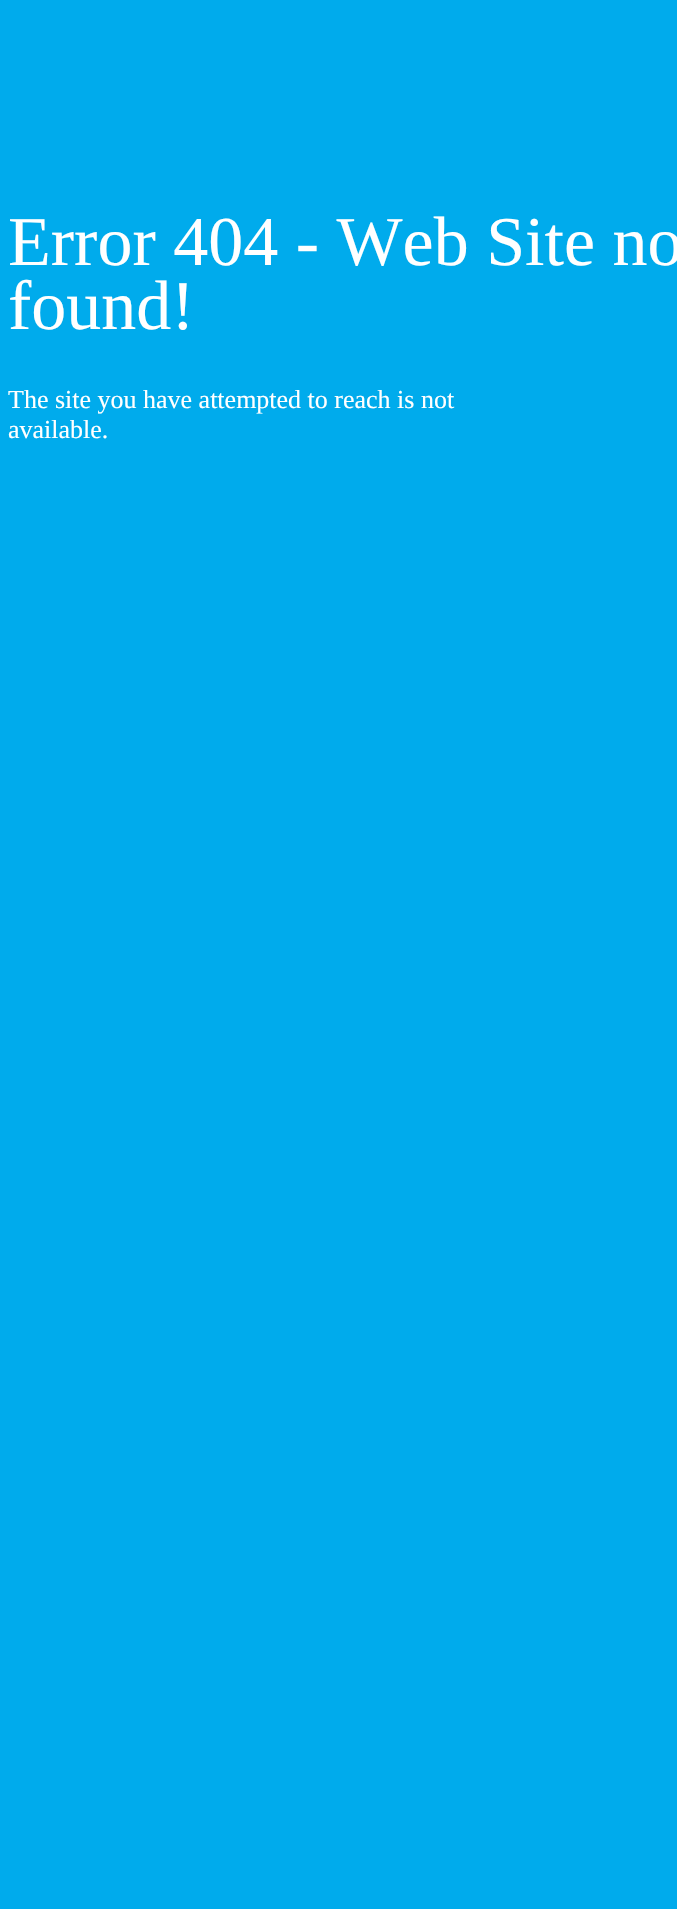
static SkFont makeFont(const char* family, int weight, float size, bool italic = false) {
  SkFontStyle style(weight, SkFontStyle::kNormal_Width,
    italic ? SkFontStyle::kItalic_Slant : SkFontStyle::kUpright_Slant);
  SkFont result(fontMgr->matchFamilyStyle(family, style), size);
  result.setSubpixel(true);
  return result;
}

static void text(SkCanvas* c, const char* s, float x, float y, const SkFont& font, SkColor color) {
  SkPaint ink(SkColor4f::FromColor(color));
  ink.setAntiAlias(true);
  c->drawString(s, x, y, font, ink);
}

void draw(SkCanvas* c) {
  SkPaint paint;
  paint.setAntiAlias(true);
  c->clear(0xff00abec);
  SkFont face1 = makeFont("Liberation Serif", 400, 70);
  text(c, "Error 404 - Web Site no", 8, 265, face1, 0xffffffff);
  text(c, "found!", 8, 329, face1, 0xffffffff);
  SkFont face2 = makeFont("Liberation Serif", 400, 26);
  text(c, "The site you have attempted to reach is not", 8, 408, face2, 0xffffffff);
  text(c, "available.", 8, 438, face2, 0xffffffff);
}
